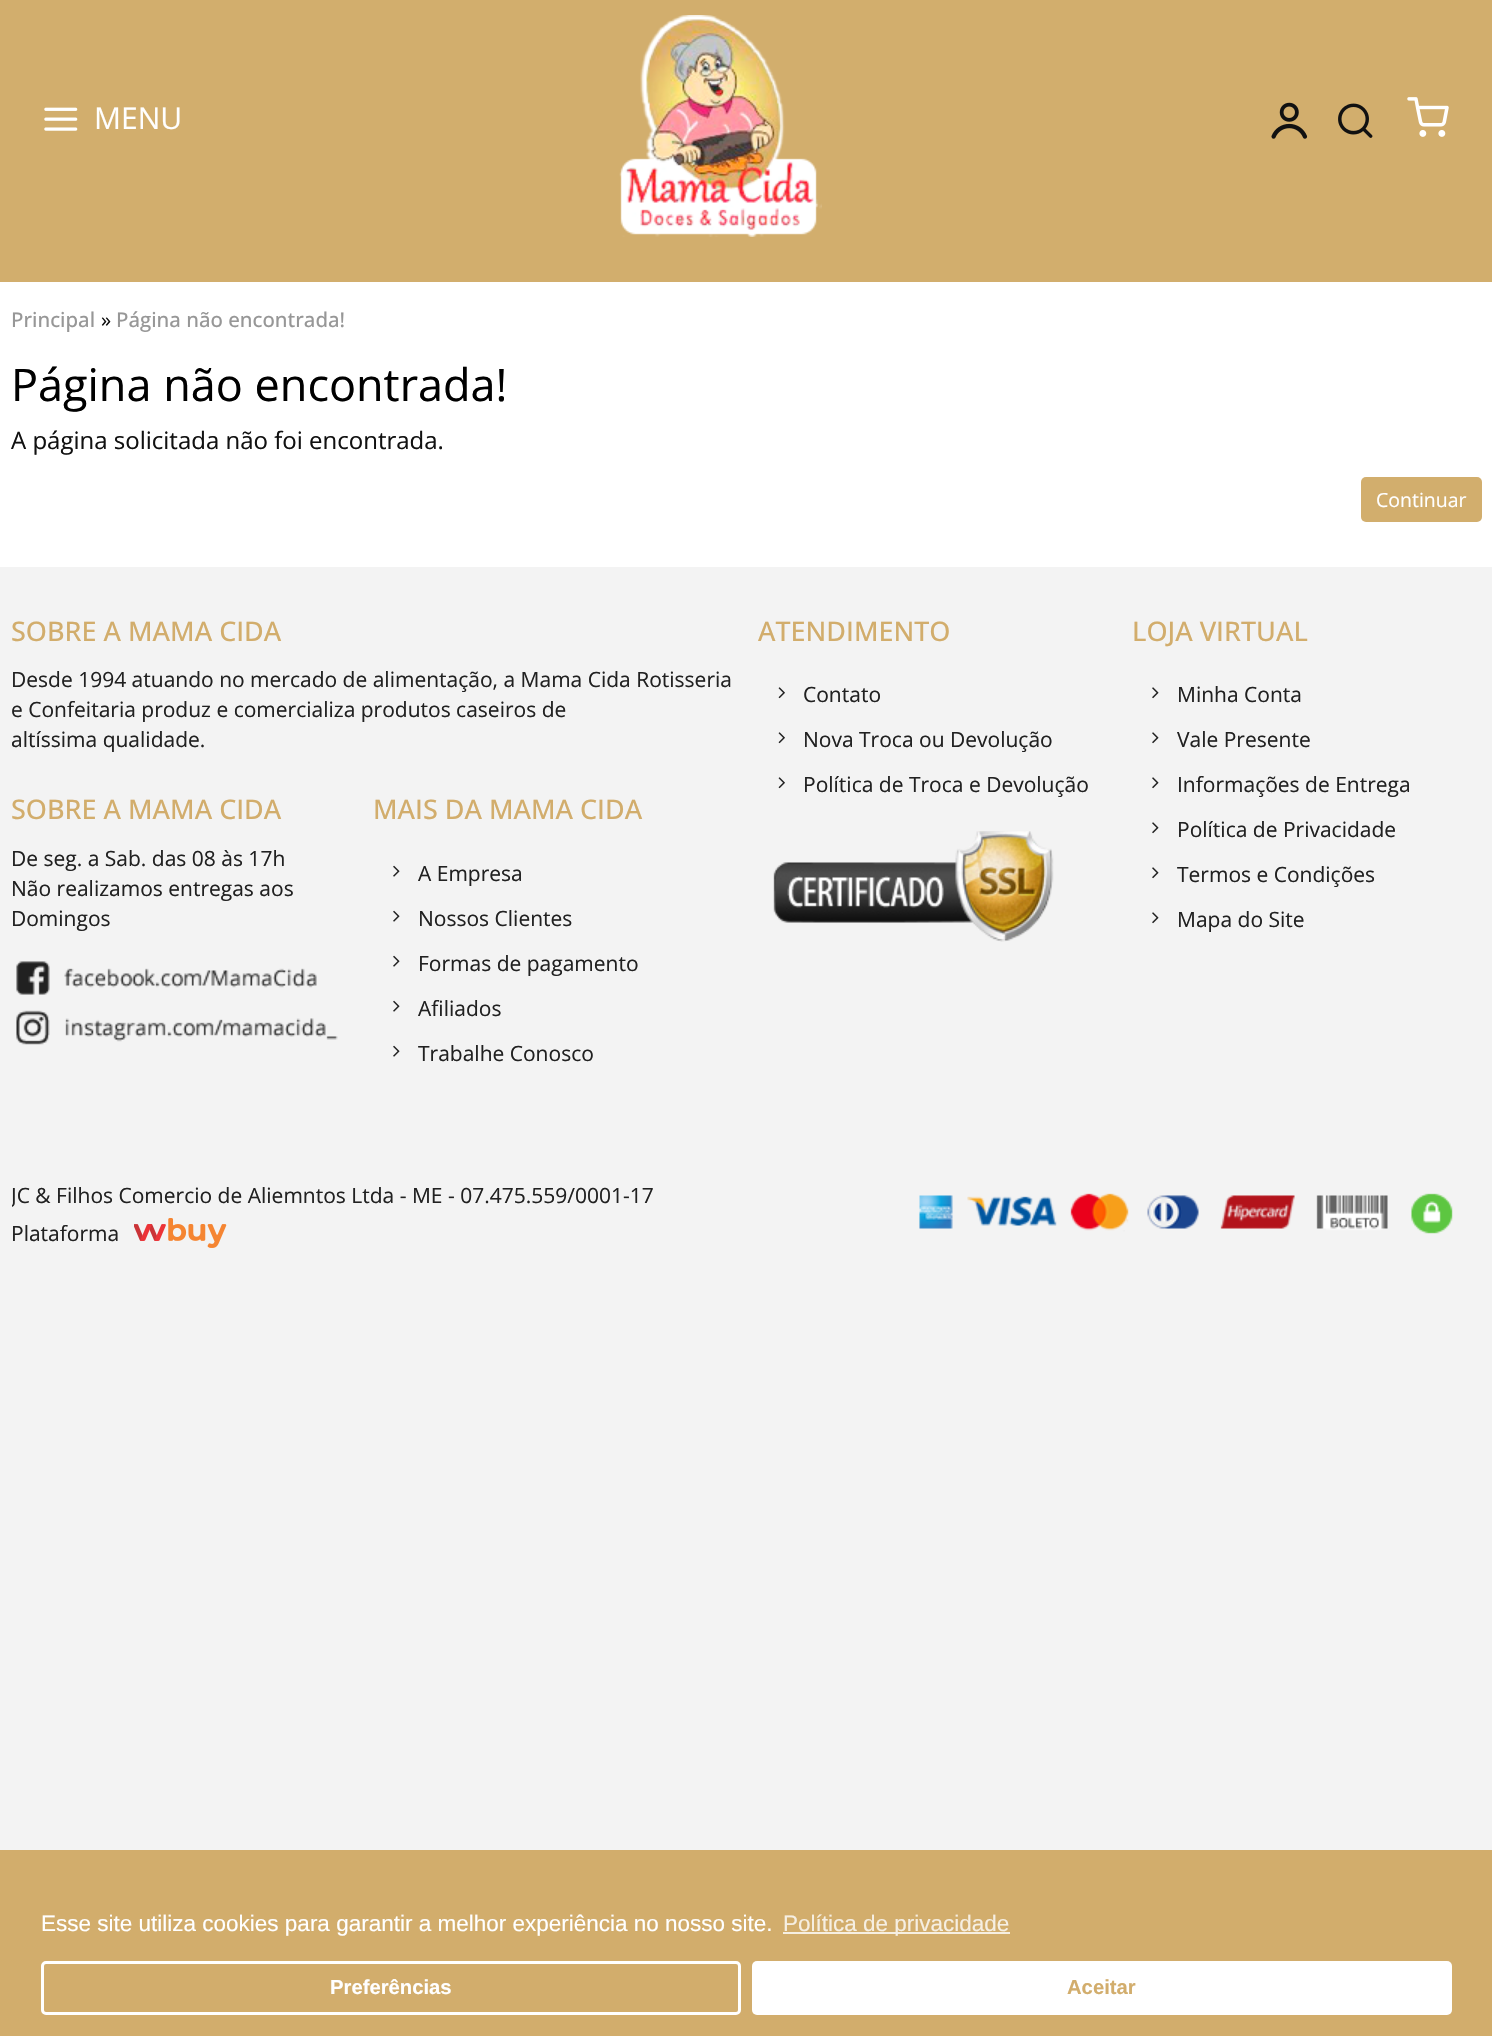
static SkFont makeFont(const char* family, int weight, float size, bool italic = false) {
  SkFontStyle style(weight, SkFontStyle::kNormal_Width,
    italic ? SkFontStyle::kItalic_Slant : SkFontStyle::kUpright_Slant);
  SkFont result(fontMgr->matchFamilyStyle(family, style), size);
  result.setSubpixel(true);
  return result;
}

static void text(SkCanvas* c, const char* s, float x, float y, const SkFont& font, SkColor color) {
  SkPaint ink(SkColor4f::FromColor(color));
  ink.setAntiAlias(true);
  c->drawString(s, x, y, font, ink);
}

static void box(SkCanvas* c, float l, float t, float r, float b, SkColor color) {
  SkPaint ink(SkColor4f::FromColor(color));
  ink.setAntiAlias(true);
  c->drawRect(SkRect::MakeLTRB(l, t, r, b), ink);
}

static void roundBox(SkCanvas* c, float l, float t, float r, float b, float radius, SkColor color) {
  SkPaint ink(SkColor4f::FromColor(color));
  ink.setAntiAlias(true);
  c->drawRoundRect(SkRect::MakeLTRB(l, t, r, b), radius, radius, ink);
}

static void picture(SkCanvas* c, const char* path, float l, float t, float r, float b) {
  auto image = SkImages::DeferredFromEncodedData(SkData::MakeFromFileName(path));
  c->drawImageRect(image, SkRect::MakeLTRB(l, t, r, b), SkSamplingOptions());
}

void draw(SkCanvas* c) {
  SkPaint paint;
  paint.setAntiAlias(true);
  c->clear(0xfff3f3f3);
  box(c, 0, 282, 1492, 567, 0xffffffff);
  box(c, 0, 0, 1492, 282, 0xffd2ae6d);
  picture(c, "img_01.png", 44, 107, 78, 131);
  SkFont face1 = makeFont("Open Sans", 400, 30);
  text(c, "MENU", 94, 129, face1, 0xffffffff);
  picture(c, "img_02.png", 619, 15, 822, 237);
  picture(c, "img_03.png", 1271, 102, 1308, 139);
  picture(c, "img_04.png", 1338, 103, 1373, 138);
  picture(c, "img_05.png", 1407, 97, 1449, 137);
  SkFont face2 = makeFont("Open Sans", 500, 20.4f);
  text(c, "Principal", 11, 327, face2, 0xff979797);
  SkFont face3 = makeFont("Open Sans", 400, 20.4f);
  text(c, "»", 101, 327, face3, 0xff111111);
  text(c, "Página não encontrada!", 116, 327, face2, 0xff979797);
  SkFont face4 = makeFont("Open Sans", 400, 45);
  text(c, "Página não encontrada!", 11, 401, face4, 0xff000000);
  SkFont face5 = makeFont("Open Sans", 400, 24);
  text(c, "A página solicitada não foi encontrada.", 11, 449, face5, 0xff111111);
  roundBox(c, 1361, 477, 1482, 522, 5, 0xffd2ae6d);
  SkFont face6 = makeFont("Open Sans", 400, 19.5f);
  text(c, "Continuar", 1376, 507, face6, 0xffffffff);
  SkFont face7 = makeFont("Open Sans", 500, 27);
  text(c, "SOBRE A MAMA CIDA", 11, 641, face7, 0xffd2ad6c);
  SkFont face8 = makeFont("Open Sans", 400, 21);
  text(c, "Desde 1994 atuando no mercado de alimentação, a Mama Cida Rotisseria", 11, 687, face8, 0xff212121);
  text(c, "e Confeitaria produz e comercializa produtos caseiros de", 11, 717, face8, 0xff212121);
  text(c, "altíssima qualidade.", 11, 747, face8, 0xff212121);
  text(c, "SOBRE A MAMA CIDA", 11, 819, face7, 0xffd2ad6c);
  text(c, "De seg. a Sab. das 08 às 17h", 11, 866, face8, 0xff212121);
  text(c, "Não realizamos entregas aos", 11, 896, face8, 0xff212121);
  text(c, "Domingos", 11, 926, face8, 0xff212121);
  picture(c, "img_06.png", 16, 961, 317, 995);
  picture(c, "img_07.png", 16, 1010, 338, 1045);
  text(c, "MAIS DA MAMA CIDA", 373, 819, face7, 0xffd2ad6c);
  picture(c, "img_08.png", 393, 865, 400, 877);
  text(c, "A Empresa", 418, 881, face8, 0xff212121);
  picture(c, "img_08.png", 393, 910, 400, 922);
  text(c, "Nossos Clientes", 418, 926, face8, 0xff212121);
  picture(c, "img_08.png", 393, 955, 400, 967);
  text(c, "Formas de pagamento", 418, 971, face8, 0xff212121);
  picture(c, "img_08.png", 393, 1000, 400, 1012);
  text(c, "Afiliados", 418, 1016, face8, 0xff212121);
  picture(c, "img_08.png", 393, 1045, 400, 1057);
  text(c, "Trabalhe Conosco", 418, 1061, face8, 0xff212121);
  text(c, "ATENDIMENTO", 758, 641, face7, 0xffd2ad6c);
  picture(c, "img_09.png", 778, 687, 785, 699);
  text(c, "Contato", 803, 702, face8, 0xff212121);
  picture(c, "img_09.png", 778, 732, 785, 744);
  text(c, "Nova Troca ou Devolução", 803, 747, face8, 0xff212121);
  picture(c, "img_09.png", 778, 777, 785, 789);
  text(c, "Política de Troca e Devolução", 803, 792, face8, 0xff212121);
  picture(c, "img_10.png", 773, 831, 1054, 942);
  text(c, "LOJA VIRTUAL", 1132, 641, face7, 0xffd2ad6c);
  picture(c, "img_11.png", 1152, 687, 1159, 699);
  text(c, "Minha Conta", 1177, 702, face8, 0xff212121);
  picture(c, "img_11.png", 1152, 732, 1159, 744);
  text(c, "Vale Presente", 1177, 747, face8, 0xff212121);
  picture(c, "img_11.png", 1152, 777, 1159, 789);
  text(c, "Informações de Entrega", 1177, 792, face8, 0xff212121);
  picture(c, "img_11.png", 1152, 822, 1159, 834);
  text(c, "Política de Privacidade", 1177, 837, face8, 0xff212121);
  picture(c, "img_11.png", 1152, 867, 1159, 879);
  text(c, "Termos e Condições", 1177, 882, face8, 0xff212121);
  picture(c, "img_11.png", 1152, 912, 1159, 924);
  text(c, "Mapa do Site", 1177, 927, face8, 0xff212121);
  c->save();
  c->clipRect(SkRect::MakeLTRB(12, 1136, 1482, 1295));
  text(c, "JC & Filhos Comercio de Aliemntos Ltda - ME", 11, 1203, face8, 0xff212121);
  c->restore();
  text(c, "- 07.475.559/0001-17", 448, 1203, face8, 0xff212121);
  text(c, "Plataforma", 11, 1241, face8, 0xff212121);
  picture(c, "img_12.png", 134, 1218, 227, 1248);
  picture(c, "img_13.png", 919, 1193, 1453, 1234);
  box(c, 0, 1850, 1492, 2036, 0xffd2ad6c);
  SkFont face9 = makeFont("Liberation Sans", 400, 22.5f);
  text(c, "Esse site utiliza cookies para garantir a melhor experiência no nosso site.", 41, 1931, face9, 0xffffffff);
  box(c, 783, 1932, 1010, 1934, 0xfff6efe2);
  text(c, "Política de privacidade", 783, 1931, face9, 0xfff6efe2);
  paint.setStyle(SkPaint::kStroke_Style);
  paint.setStrokeWidth(3);
  paint.setColor(0xffffffff);
  c->drawRoundRect(SkRect::MakeLTRB(42.5f, 1962.5f, 739.5f, 2013.5f), 3.5f, 3.5f, paint);
  SkFont face10 = makeFont("Liberation Sans", 700, 20.25f);
  text(c, "Preferências", 330, 1994, face10, 0xffffffff);
  roundBox(c, 752, 1961, 1452, 2015, 5, 0xffffffff);
  text(c, "Aceitar", 1067, 1994, face10, 0xffd2ad6c);
}
